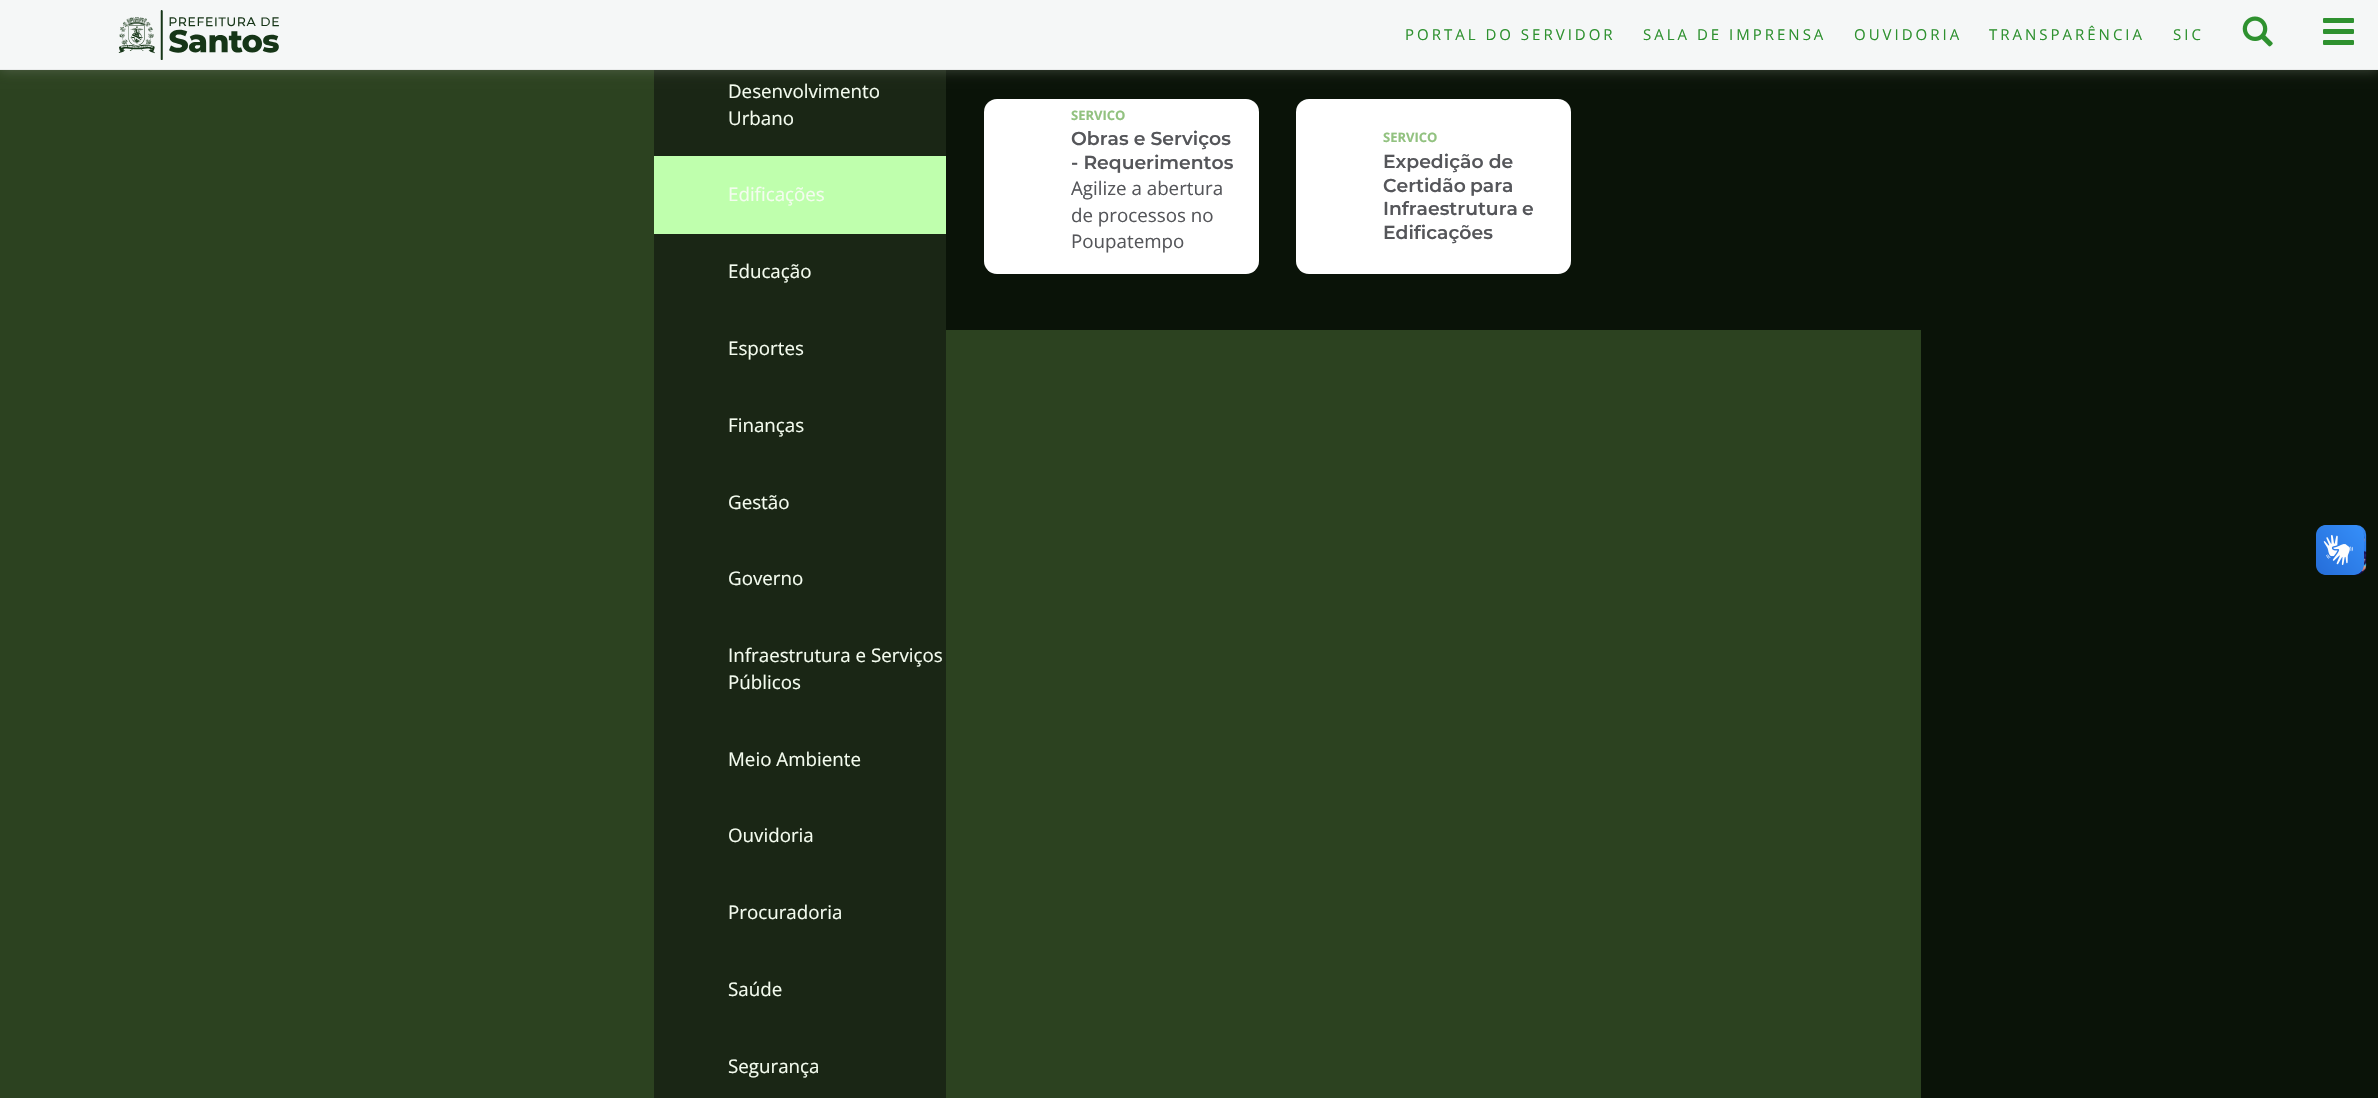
static SkFont makeFont(const char* family, int weight, float size, bool italic = false) {
  SkFontStyle style(weight, SkFontStyle::kNormal_Width,
    italic ? SkFontStyle::kItalic_Slant : SkFontStyle::kUpright_Slant);
  SkFont result(fontMgr->matchFamilyStyle(family, style), size);
  result.setSubpixel(true);
  return result;
}

static void text(SkCanvas* c, const char* s, float x, float y, const SkFont& font, SkColor color) {
  SkPaint ink(SkColor4f::FromColor(color));
  ink.setAntiAlias(true);
  c->drawString(s, x, y, font, ink);
}

static void spacedText(SkCanvas* c, const char* s, float x, float y, const SkFont& font, const SkPaint& ink, float letter, float word) {
  std::vector<SkGlyphID> glyphs(font.countText(s, strlen(s), SkTextEncoding::kUTF8));
  std::vector<float> xs(glyphs.size());
  font.textToGlyphs(s, strlen(s), SkTextEncoding::kUTF8, glyphs);
  font.getXPos(glyphs, xs, x);
  float extra = 0;
  for (size_t i = 0; i < glyphs.size(); i++) {
    xs[i] += extra;
    extra += letter + word * (glyphs[i] == font.unicharToGlyph(' '));
  }
  c->drawTextBlob(SkTextBlob::MakeFromPosHGlyphs(glyphs, xs, y, font), 0, 0, ink);
}

static void box(SkCanvas* c, float l, float t, float r, float b, SkColor color) {
  SkPaint ink(SkColor4f::FromColor(color));
  ink.setAntiAlias(true);
  c->drawRect(SkRect::MakeLTRB(l, t, r, b), ink);
}

static void roundBox(SkCanvas* c, float l, float t, float r, float b, float radius, SkColor color) {
  SkPaint ink(SkColor4f::FromColor(color));
  ink.setAntiAlias(true);
  c->drawRoundRect(SkRect::MakeLTRB(l, t, r, b), radius, radius, ink);
}

static void picture(SkCanvas* c, const char* path, float l, float t, float r, float b) {
  auto image = SkImages::DeferredFromEncodedData(SkData::MakeFromFileName(path));
  c->drawImageRect(image, SkRect::MakeLTRB(l, t, r, b), SkSamplingOptions());
}

void draw(SkCanvas* c) {
  SkPaint paint;
  paint.setAntiAlias(true);
  c->clear(0xff2c4220);
  box(c, 654, 70, 946, 1098, 0xff1a2615);
  box(c, 946, 70, 1921, 330, 0xff0a1308);
  box(c, 1921, 70, 2378, 1098, 0xff0a1308);
  paint.setColor(0x70788174);
  paint.setMaskFilter(SkMaskFilter::MakeBlur(kNormal_SkBlurStyle, 6));
  c->drawRect(SkRect::MakeLTRB(0, 1, 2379, 71), paint);
  paint.setMaskFilter(nullptr);
  box(c, 0, 0, 2378, 69, 0xfff5f7f7);
  box(c, 0, 69, 2378, 70, 0xffe9ebeb);
  picture(c, "img_01.png", 118, 10, 279, 60);
  SkFont face1 = makeFont("Open Sans", 400, 15);
  paint.setColor(0xff2e912f);
  spacedText(c, "PORTAL DO SERVIDOR", 1405, 40, face1, paint, 3, 0);
  spacedText(c, "SALA DE IMPRENSA", 1643, 40, face1, paint, 3, 0);
  spacedText(c, "OUVIDORIA", 1854, 40, face1, paint, 3, 0);
  spacedText(c, "TRANSPARÊNCIA", 1989, 40, face1, paint, 3, 0);
  spacedText(c, "SIC", 2173, 40, face1, paint, 3, 0);
  picture(c, "img_02.png", 2242, 16, 2273, 47);
  roundBox(c, 2323, 18, 2354, 23, 1, 0xff2e912f);
  roundBox(c, 2323, 29, 2354, 34, 1, 0xff2e912f);
  roundBox(c, 2323, 40, 2354, 45, 1, 0xff2e912f);
  SkFont face2 = makeFont("Open Sans", 400, 18.75f);
  text(c, "Desenvolvimento", 728, 98, face2, 0xfff4fcef);
  text(c, "Urbano", 728, 125, face2, 0xfff4fcef);
  box(c, 654, 156, 946, 234, 0xffbfffad);
  text(c, "Edificações", 728, 201, face2, 0xfff4fcef);
  text(c, "Educação", 728, 278, face2, 0xfff4fcef);
  text(c, "Esportes", 728, 355, face2, 0xfff4fcef);
  text(c, "Finanças", 728, 432, face2, 0xfff4fcef);
  text(c, "Gestão", 728, 509, face2, 0xfff4fcef);
  text(c, "Governo", 728, 585, face2, 0xfff4fcef);
  text(c, "Infraestrutura e Serviços", 728, 662, face2, 0xfff4fcef);
  text(c, "Públicos", 728, 689, face2, 0xfff4fcef);
  text(c, "Meio Ambiente", 728, 766, face2, 0xfff4fcef);
  text(c, "Ouvidoria", 728, 842, face2, 0xfff4fcef);
  text(c, "Procuradoria", 728, 919, face2, 0xfff4fcef);
  text(c, "Saúde", 728, 996, face2, 0xfff4fcef);
  text(c, "Segurança", 728, 1073, face2, 0xfff4fcef);
  roundBox(c, 984, 99, 1259, 274, 13, 0xffffffff);
  SkFont face3 = makeFont("Open Sans", 700, 13);
  text(c, "SERVICO", 1071, 120, face3, 0xff92c280);
  SkFont face4 = makeFont("Montserrat", 600, 18.75f);
  text(c, "Obras e Serviços", 1071, 145, face4, 0xff55565a);
  text(c, "- Requerimentos", 1071, 169, face4, 0xff55565a);
  text(c, "Agilize a abertura", 1071, 195, face2, 0xff55565a);
  text(c, "de processos no", 1071, 222, face2, 0xff55565a);
  text(c, "Poupatempo", 1071, 248, face2, 0xff55565a);
  roundBox(c, 1296, 99, 1571, 274, 13, 0xffffffff);
  text(c, "SERVICO", 1383, 142, face3, 0xff92c280);
  text(c, "Expedição de", 1383, 168, face4, 0xff55565a);
  paint.setColor(0xff55565a);
  spacedText(c, "Certidão para", 1383, 192, face4, paint, 0, -1);
  spacedText(c, "Infraestrutura e", 1383, 215, face4, paint, 0, -1);
  text(c, "Edificações", 1383, 239, face4, 0xff55565a);
  picture(c, "img_03.png", 2316, 525, 2367, 575);
  picture(c, "img_04.png", 2316, 525, 2364, 575);
}
